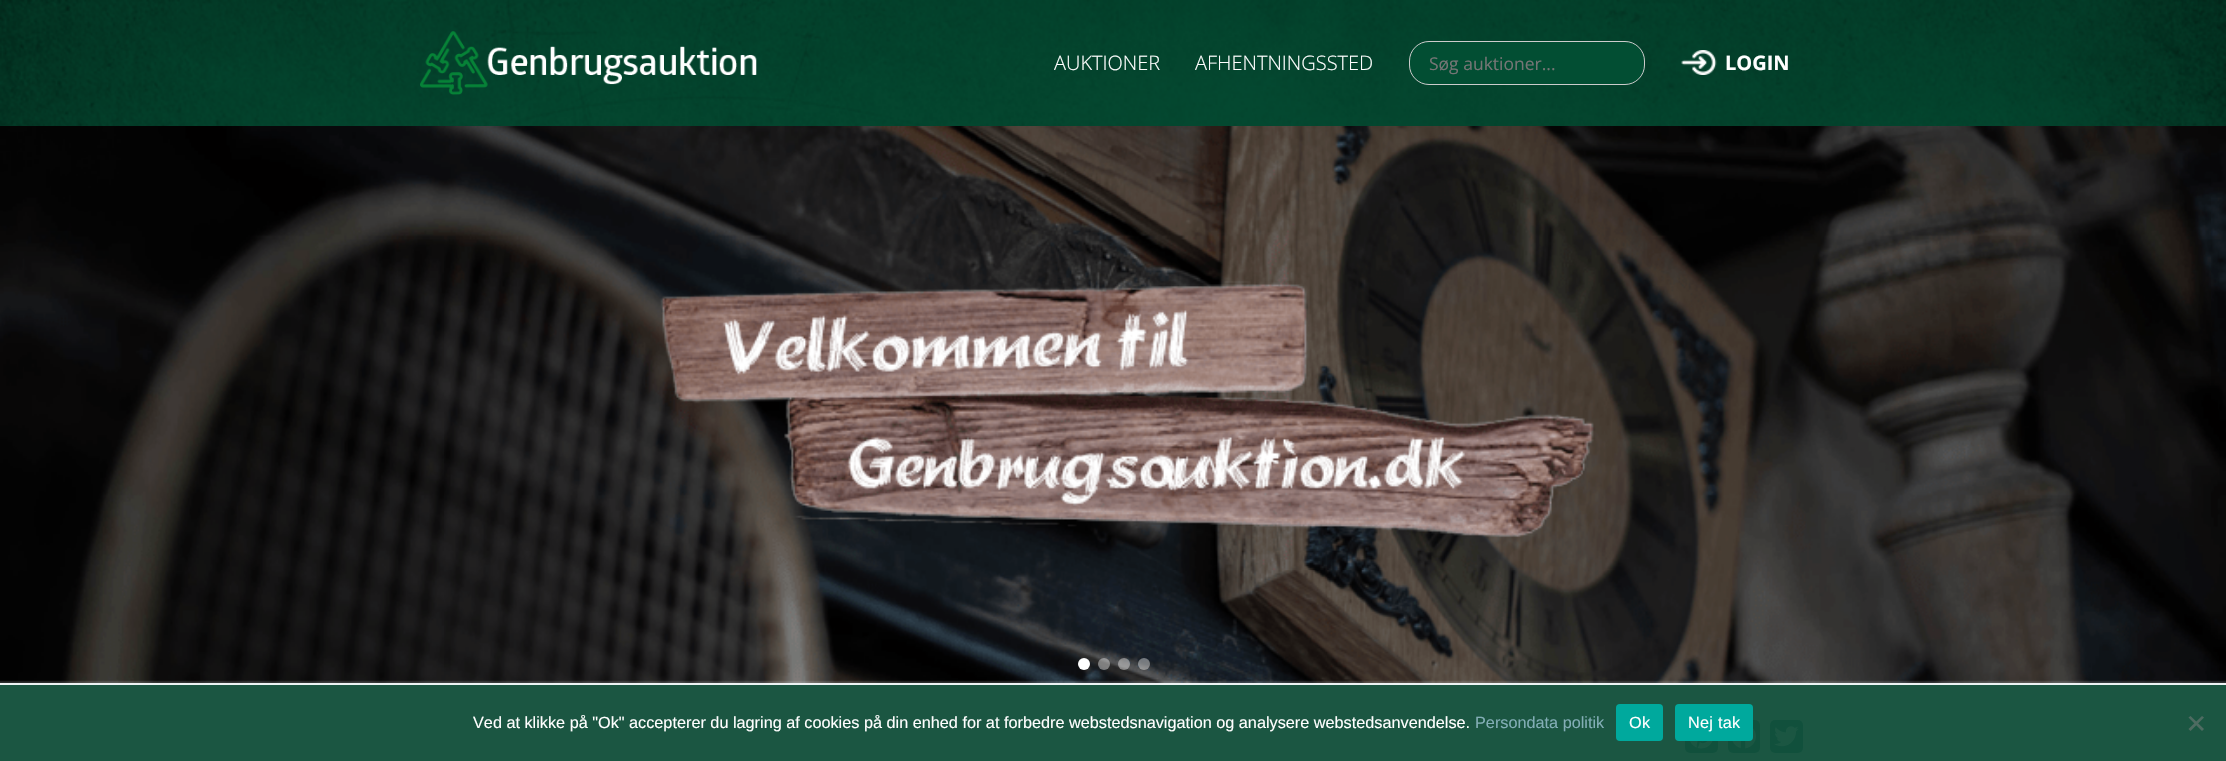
static SkFont makeFont(const char* family, int weight, float size, bool italic = false) {
  SkFontStyle style(weight, SkFontStyle::kNormal_Width,
    italic ? SkFontStyle::kItalic_Slant : SkFontStyle::kUpright_Slant);
  SkFont result(fontMgr->matchFamilyStyle(family, style), size);
  result.setSubpixel(true);
  return result;
}

static void text(SkCanvas* c, const char* s, float x, float y, const SkFont& font, SkColor color) {
  SkPaint ink(SkColor4f::FromColor(color));
  ink.setAntiAlias(true);
  c->drawString(s, x, y, font, ink);
}

static void spacedText(SkCanvas* c, const char* s, float x, float y, const SkFont& font, const SkPaint& ink, float letter, float word) {
  std::vector<SkGlyphID> glyphs(font.countText(s, strlen(s), SkTextEncoding::kUTF8));
  std::vector<float> xs(glyphs.size());
  font.textToGlyphs(s, strlen(s), SkTextEncoding::kUTF8, glyphs);
  font.getXPos(glyphs, xs, x);
  float extra = 0;
  for (size_t i = 0; i < glyphs.size(); i++) {
    xs[i] += extra;
    extra += letter + word * (glyphs[i] == font.unicharToGlyph(' '));
  }
  c->drawTextBlob(SkTextBlob::MakeFromPosHGlyphs(glyphs, xs, y, font), 0, 0, ink);
}

static void box(SkCanvas* c, float l, float t, float r, float b, SkColor color) {
  SkPaint ink(SkColor4f::FromColor(color));
  ink.setAntiAlias(true);
  c->drawRect(SkRect::MakeLTRB(l, t, r, b), ink);
}

static void roundBox(SkCanvas* c, float l, float t, float r, float b, float radius, SkColor color) {
  SkPaint ink(SkColor4f::FromColor(color));
  ink.setAntiAlias(true);
  c->drawRoundRect(SkRect::MakeLTRB(l, t, r, b), radius, radius, ink);
}

static void picture(SkCanvas* c, const char* path, float l, float t, float r, float b) {
  auto image = SkImages::DeferredFromEncodedData(SkData::MakeFromFileName(path));
  c->drawImageRect(image, SkRect::MakeLTRB(l, t, r, b), SkSamplingOptions());
}

void draw(SkCanvas* c) {
  SkPaint paint;
  paint.setAntiAlias(true);
  c->clear(0xffedf3f4);
  box(c, 0, 685, 2226, 761, 0xff1b5642);
  picture(c, "img_01.png", 0, 0, 2226, 126);
  picture(c, "img_02.png", 420, 31, 757, 95);
  SkFont face1 = makeFont("Open Sans", 300, 20);
  text(c, "AUKTIONER", 1054, 70, face1, 0xffffffff);
  text(c, "AFHENTNINGSSTED", 1195, 70, face1, 0xffffffff);
  paint.setColor(0xff024e33);
  c->drawRoundRect(SkRect::MakeLTRB(1409.5f, 41.5f, 1644.5f, 84.5f), 19.5f, 19.5f, paint);
  paint.setStyle(SkPaint::kStroke_Style);
  paint.setStrokeWidth(1);
  paint.setColor(0xffcccccc);
  c->drawRoundRect(SkRect::MakeLTRB(1409.5f, 41.5f, 1644.5f, 84.5f), 19.5f, 19.5f, paint);
  SkFont face2 = makeFont("Open Sans", 400, 17.5f);
  text(c, "Søg auktioner...", 1429, 70, face2, 0xff757575);
  picture(c, "img_03.png", 1681, 50, 1717, 75);
  SkFont face3 = makeFont("Open Sans", 700, 20);
  text(c, "LOGIN", 1725, 70, face3, 0xffffffff);
  picture(c, "img_04.png", 0, 126, 2226, 683);
  paint.setStyle(SkPaint::kFill_Style);
  paint.setColor(0xffffffff);
  c->drawCircle(1084, 664, 6, paint);
  paint.setColor(0x66ffffff);
  c->drawCircle(1104, 664, 6, paint);
  c->drawCircle(1124, 664, 6, paint);
  c->drawCircle(1144, 664, 6, paint);
  roundBox(c, 1685, 720, 1718, 753, 5, 0xff11503c);
  picture(c, "img_05.png", 1690, 741, 1713, 749);
  roundBox(c, 1728, 720, 1760, 753, 5, 0xff11503c);
  picture(c, "img_06.png", 1732, 728, 1756, 749);
  roundBox(c, 1770, 720, 1803, 753, 5, 0xff11503c);
  picture(c, "img_07.png", 1774, 726, 1799, 747);
  SkFont face4 = makeFont("Liberation Sans", 400, 16.25f);
  text(c, "Ved at klikke på \"Ok\" accepterer du lagring af cookies på din enhed for at forbedre webstedsnavigation og analysere webstedsanvendelse.", 473, 728, face4, 0xffffffff);
  text(c, "Persondata politik", 1475, 728, face4, 0xff83aeb6);
  roundBox(c, 1616, 704, 1663, 741, 4, 0xff00a99d);
  paint.setColor(0xffffffff);
  spacedText(c, "Ok", 1629, 728, face4, paint, 0.25f, 0);
  roundBox(c, 1675, 704, 1753, 741, 4, 0xff00a99d);
  spacedText(c, "Nej tak", 1688, 728, face4, paint, 0.25f, 0);
  paint.setColor(0xff4e6b61);
  c->drawPath(SkPathBuilder().moveTo(2202, 716).lineTo(2204, 717.5f).lineTo(2190.5f, 731).lineTo(2188.5f, 729).close().detach(), paint);
  c->drawPath(SkPathBuilder().moveTo(2188.5f, 717.5f).lineTo(2190.5f, 716).lineTo(2204, 729).lineTo(2202, 731).close().detach(), paint);
}
